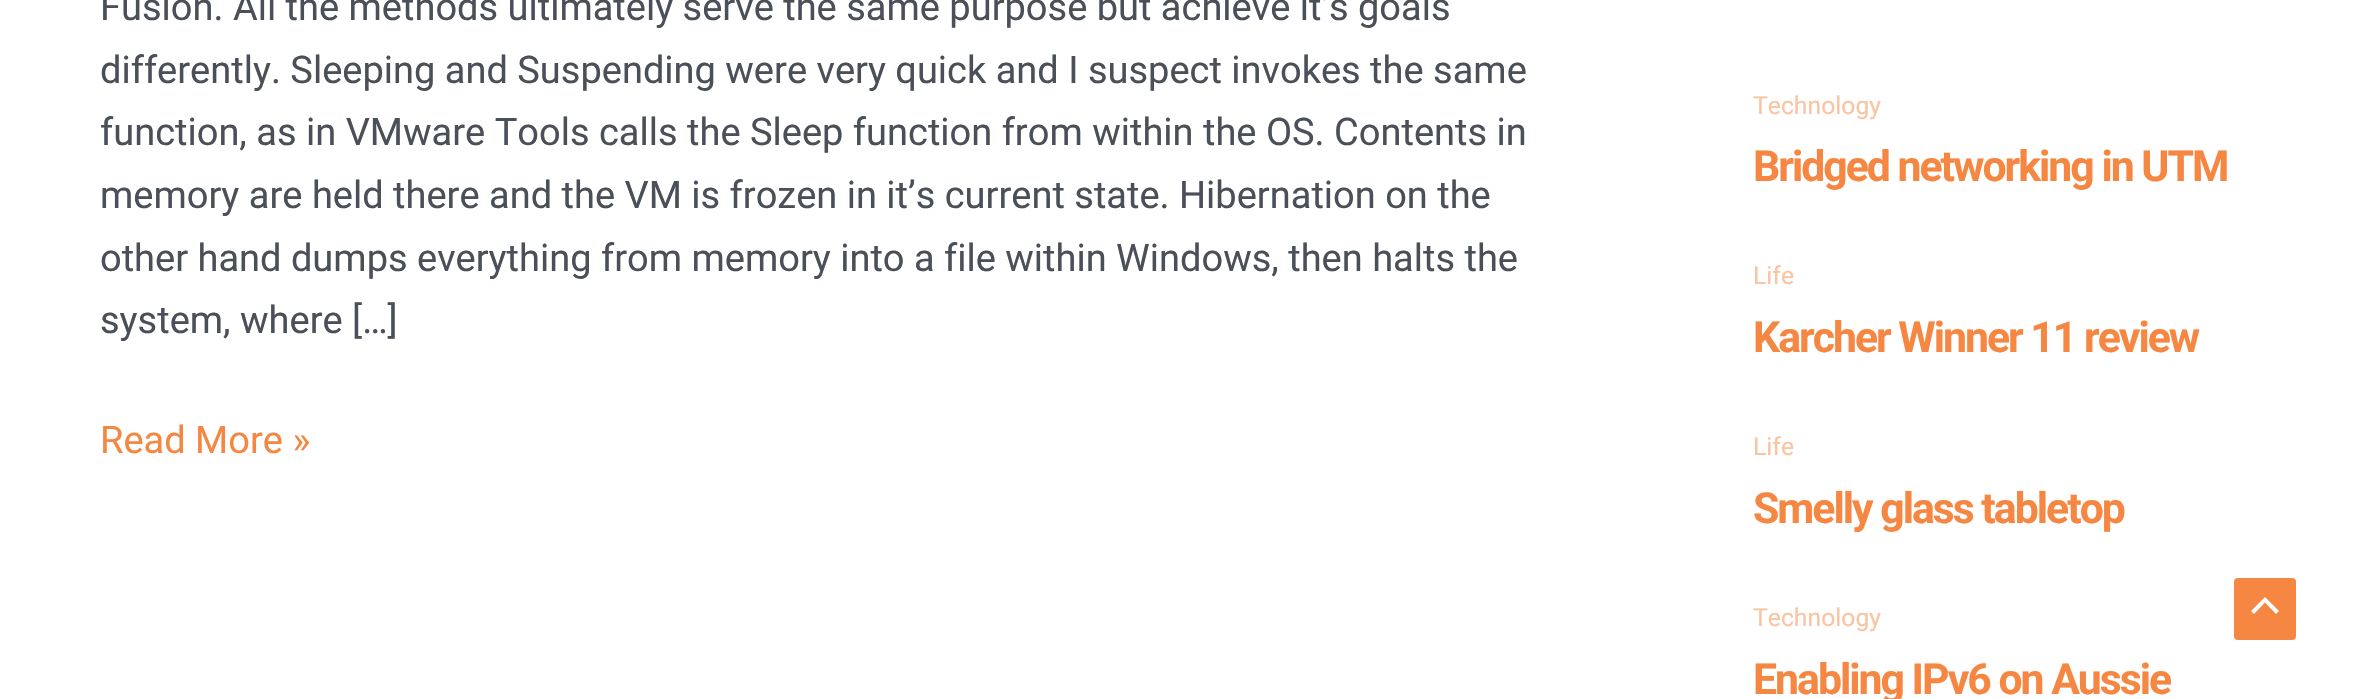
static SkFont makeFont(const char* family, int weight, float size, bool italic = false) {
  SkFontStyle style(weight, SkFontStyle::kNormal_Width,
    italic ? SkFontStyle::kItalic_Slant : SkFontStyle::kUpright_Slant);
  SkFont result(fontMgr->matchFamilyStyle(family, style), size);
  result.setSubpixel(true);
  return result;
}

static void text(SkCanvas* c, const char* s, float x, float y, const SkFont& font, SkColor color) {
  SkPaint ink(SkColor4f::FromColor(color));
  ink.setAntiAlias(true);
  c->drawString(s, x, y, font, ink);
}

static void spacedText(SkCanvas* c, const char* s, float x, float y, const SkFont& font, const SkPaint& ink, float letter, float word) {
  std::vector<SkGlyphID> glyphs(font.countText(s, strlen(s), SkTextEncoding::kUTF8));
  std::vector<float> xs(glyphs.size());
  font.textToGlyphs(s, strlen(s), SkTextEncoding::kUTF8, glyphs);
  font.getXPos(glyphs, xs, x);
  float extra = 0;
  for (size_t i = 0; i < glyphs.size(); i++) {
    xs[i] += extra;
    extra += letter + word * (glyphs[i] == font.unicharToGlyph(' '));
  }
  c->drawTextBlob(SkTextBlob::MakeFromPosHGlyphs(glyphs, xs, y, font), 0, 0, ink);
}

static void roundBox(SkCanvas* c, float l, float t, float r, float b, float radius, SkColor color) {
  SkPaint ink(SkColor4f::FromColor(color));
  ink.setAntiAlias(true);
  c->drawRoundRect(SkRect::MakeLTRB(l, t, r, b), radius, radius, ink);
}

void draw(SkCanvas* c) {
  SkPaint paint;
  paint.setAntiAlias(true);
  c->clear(0xffffffff);
  SkFont face1 = makeFont("Roboto", 400, 38);
  text(c, "Fusion. All the methods ultimately serve the same purpose but achieve it’s goals", 100, 20, face1, 0xff4b4f58);
  text(c, "differently. Sleeping and Suspending were very quick and I suspect invokes the same", 100, 83, face1, 0xff4b4f58);
  text(c, "function, as in VMware Tools calls the Sleep function from within the OS. Contents in", 100, 145, face1, 0xff4b4f58);
  text(c, "memory are held there and the VM is frozen in it’s current state. Hibernation on the", 100, 208, face1, 0xff4b4f58);
  text(c, "other hand dumps everything from memory into a file within Windows, then halts the", 100, 271, face1, 0xff4b4f58);
  text(c, "system, where […]", 100, 333, face1, 0xff4b4f58);
  text(c, "Read More »", 100, 453, face1, 0xfff58742);
  SkFont face2 = makeFont("Roboto", 400, 24.75f);
  text(c, "Technology", 1753, 114, face2, 0xfffac3a1);
  SkFont face3 = makeFont("Roboto", 700, 42.75f);
  paint.setColor(0xfff58742);
  spacedText(c, "Bridged networking in UTM", 1753, 181, face3, paint, -2, 0);
  text(c, "Life", 1753, 284, face2, 0xfffac3a1);
  spacedText(c, "Karcher Winner 11 review", 1753, 352, face3, paint, -2, 0);
  text(c, "Life", 1753, 455, face2, 0xfffac3a1);
  spacedText(c, "Smelly glass tabletop", 1753, 523, face3, paint, -2, 0);
  text(c, "Technology", 1753, 626, face2, 0xfffac3a1);
  spacedText(c, "Enabling IPv6 on Aussie", 1753, 694, face3, paint, -2, 0);
  roundBox(c, 2234, 578, 2296, 640, 4, 0xfff58742);
  paint.setColor(0xffffffff);
  c->drawPath(SkPathBuilder().moveTo(2279, 611).lineTo(2265, 597).lineTo(2251, 611).lineTo(2254, 614).lineTo(2265, 602.5f).lineTo(2276, 614).close().detach(), paint);
}
